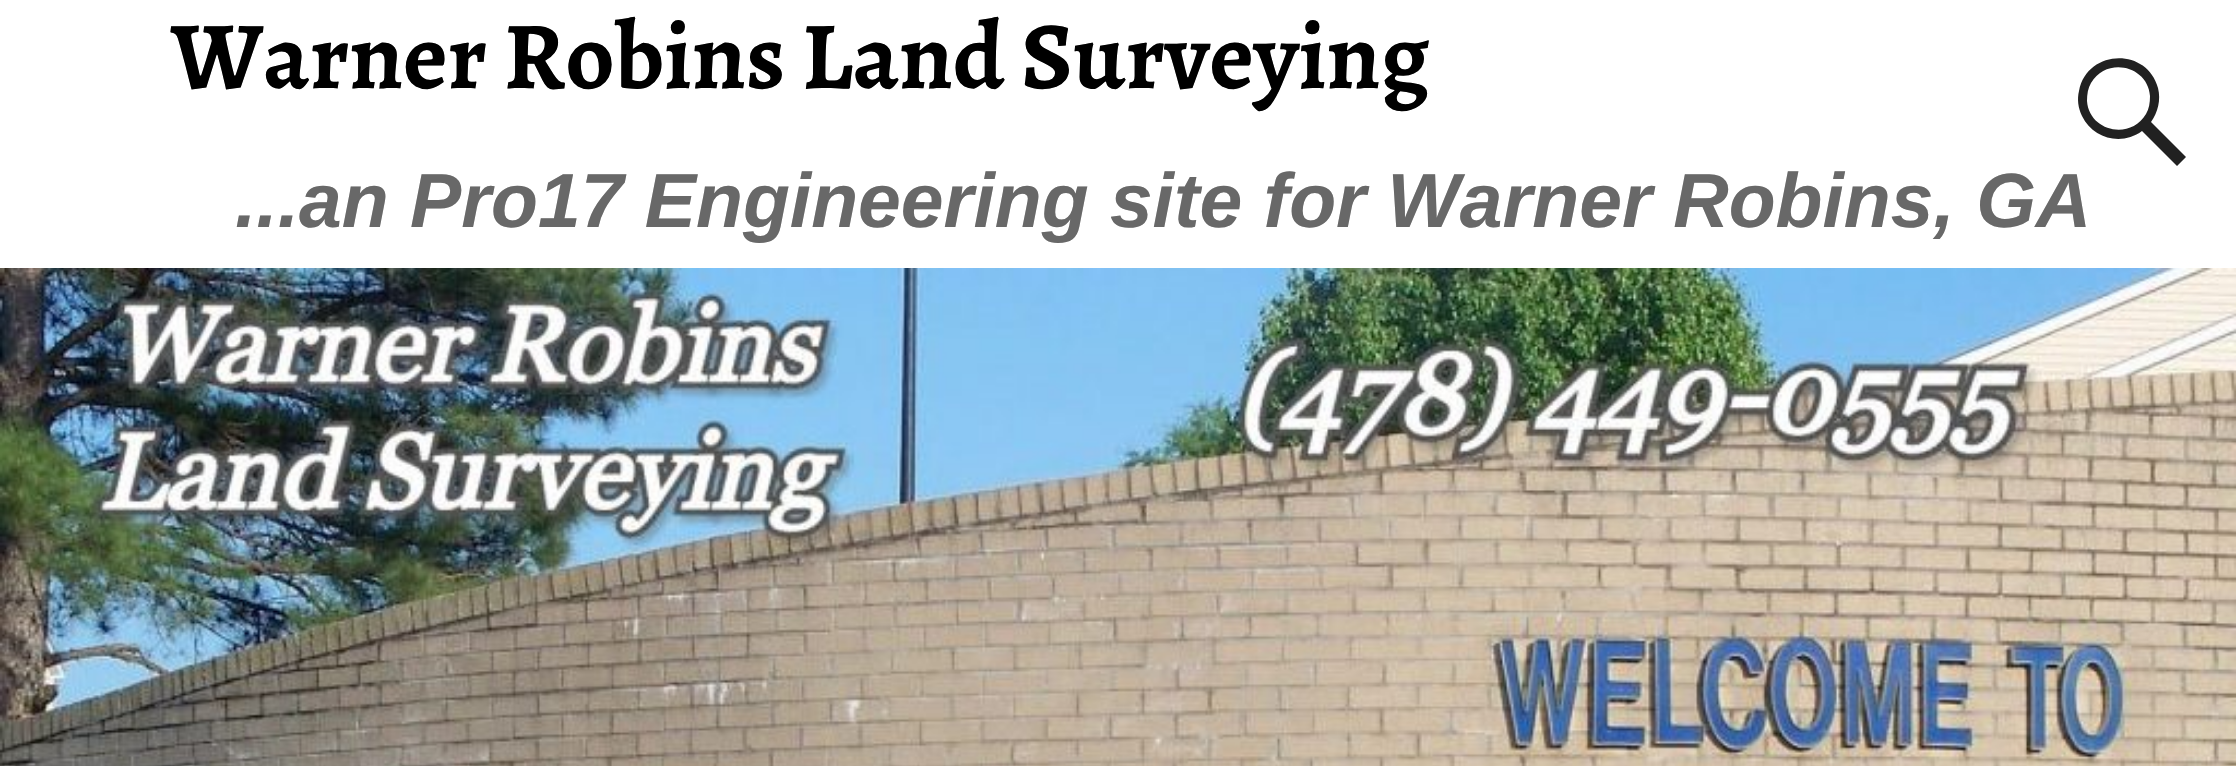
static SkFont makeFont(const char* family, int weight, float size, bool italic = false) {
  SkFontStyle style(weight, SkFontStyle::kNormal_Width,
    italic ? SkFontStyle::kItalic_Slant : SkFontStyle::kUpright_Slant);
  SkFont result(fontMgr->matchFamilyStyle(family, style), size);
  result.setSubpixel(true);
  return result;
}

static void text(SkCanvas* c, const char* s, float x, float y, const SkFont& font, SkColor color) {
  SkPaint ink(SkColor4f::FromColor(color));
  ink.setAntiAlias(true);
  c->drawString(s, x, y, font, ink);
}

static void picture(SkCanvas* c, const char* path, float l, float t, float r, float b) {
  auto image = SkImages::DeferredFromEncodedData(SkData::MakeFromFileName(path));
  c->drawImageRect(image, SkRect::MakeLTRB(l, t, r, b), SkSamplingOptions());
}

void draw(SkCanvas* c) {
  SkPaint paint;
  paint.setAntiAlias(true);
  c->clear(0xffffffff);
  SkFont face1 = makeFont("Alegreya", 700, 96);
  text(c, "Warner Robins Land Surveying", 171, 88, face1, 0xff000000);
  paint.setColor(0xff212121);
  c->drawPath(SkPathBuilder().moveTo(2186, 157).lineTo(2177, 166).lineTo(2142, 131).cubicTo(2122, 146, 2093, 139, 2082, 116).cubicTo(2078, 108, 2077, 99, 2079, 91).cubicTo(2087, 49, 2147, 47, 2158, 88).cubicTo(2161, 100, 2158, 112, 2151, 122).close().moveTo(2091, 83).cubicTo(2088, 88, 2087, 94, 2087, 101).cubicTo(2089, 131, 2130, 141, 2146, 114).cubicTo(2149, 109, 2150, 103, 2150, 96).cubicTo(2148, 66, 2107, 56, 2091, 83).close().detach(), paint);
  SkFont face2 = makeFont("Liberation Sans", 700, 76.8f, true);
  text(c, "...an Pro17 Engineering site for Warner Robins, GA", 235, 227, face2, 0xff686868);
  picture(c, "img_01.png", 0, 268, 2236, 766);
}
